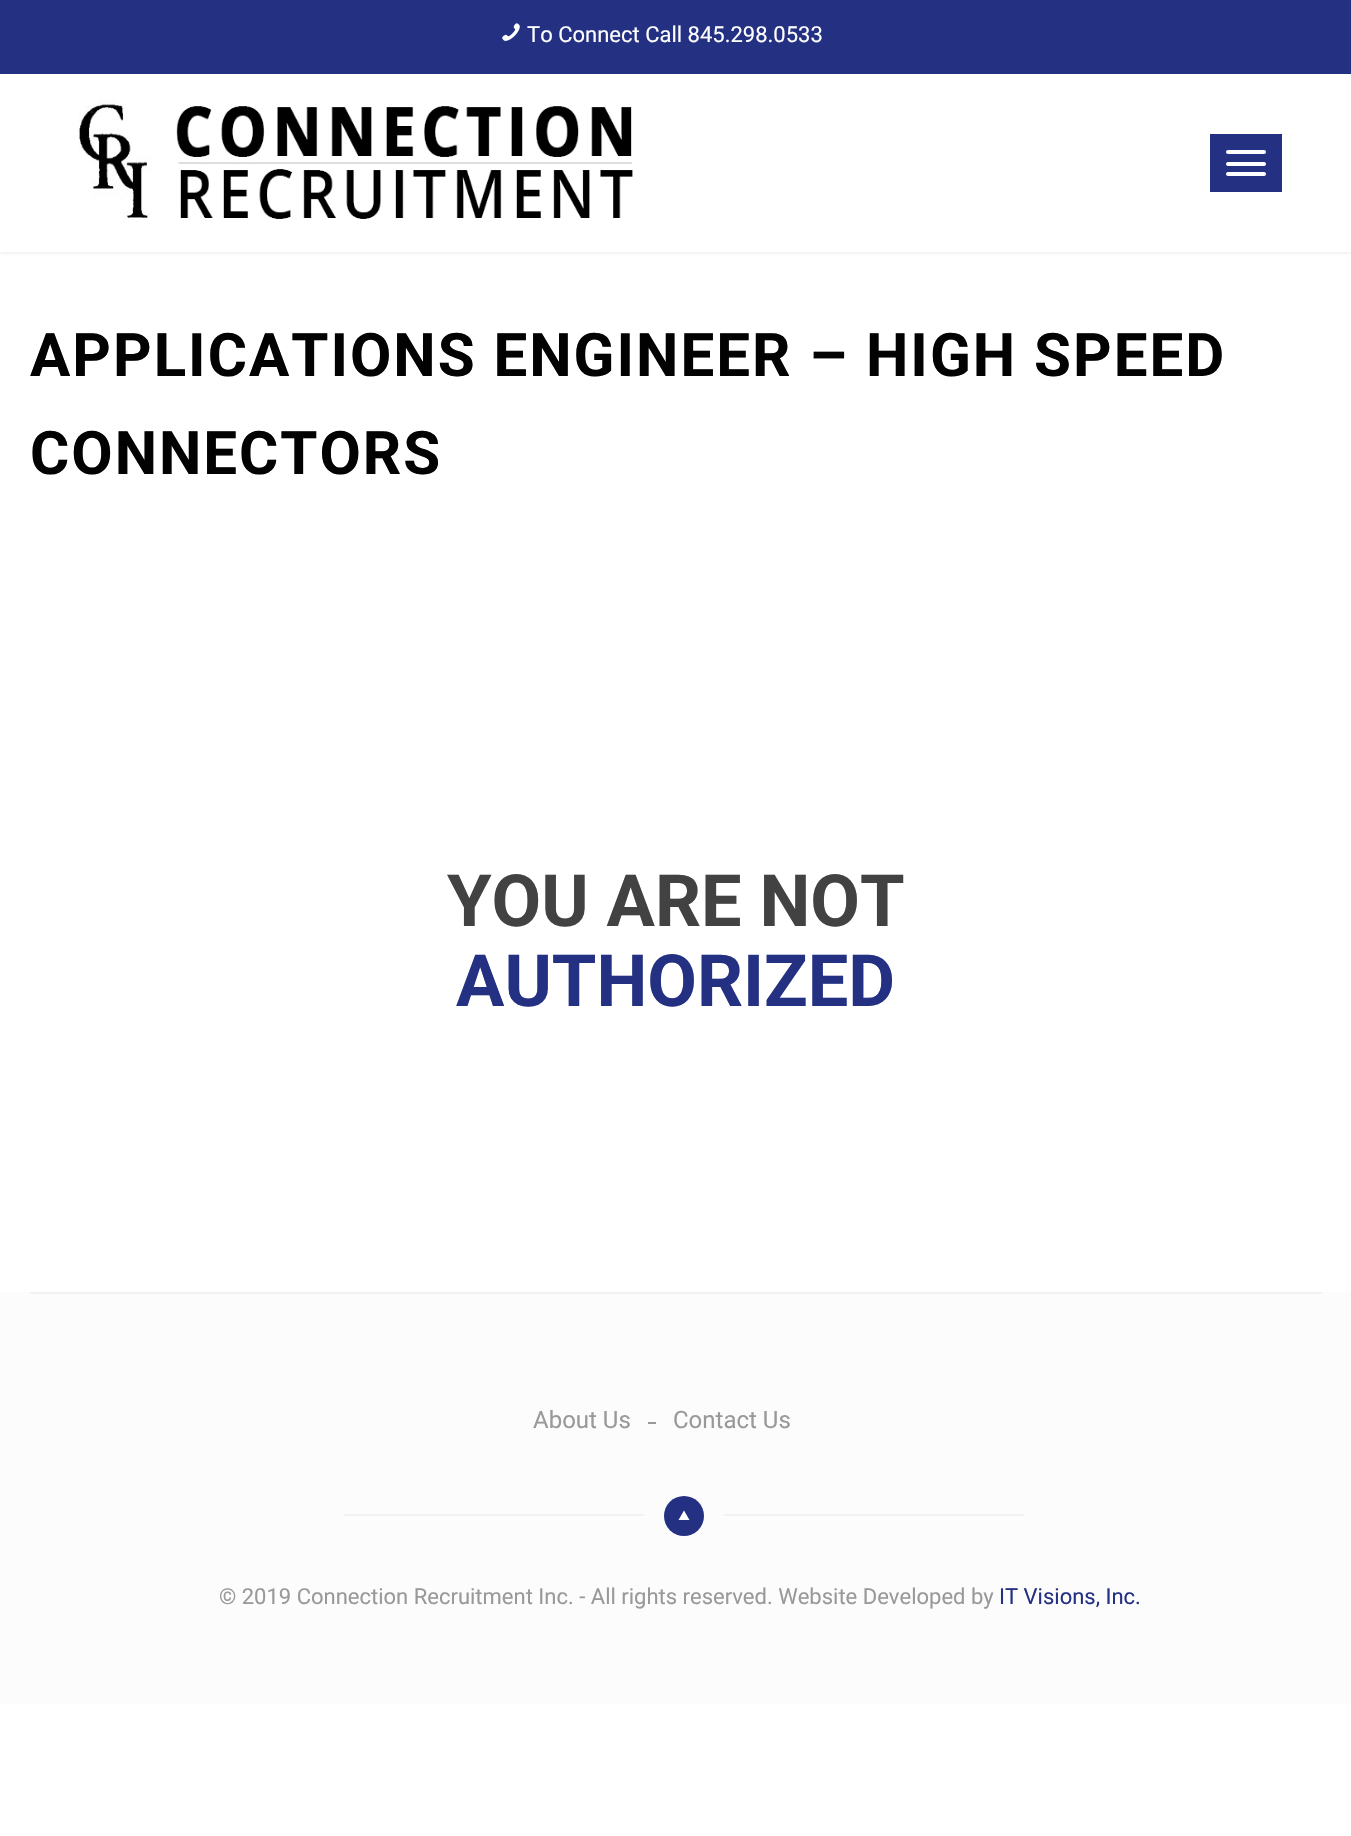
static SkFont makeFont(const char* family, int weight, float size, bool italic = false) {
  SkFontStyle style(weight, SkFontStyle::kNormal_Width,
    italic ? SkFontStyle::kItalic_Slant : SkFontStyle::kUpright_Slant);
  SkFont result(fontMgr->matchFamilyStyle(family, style), size);
  result.setSubpixel(true);
  return result;
}

static void text(SkCanvas* c, const char* s, float x, float y, const SkFont& font, SkColor color) {
  SkPaint ink(SkColor4f::FromColor(color));
  ink.setAntiAlias(true);
  c->drawString(s, x, y, font, ink);
}

static void spacedText(SkCanvas* c, const char* s, float x, float y, const SkFont& font, const SkPaint& ink, float letter, float word) {
  std::vector<SkGlyphID> glyphs(font.countText(s, strlen(s), SkTextEncoding::kUTF8));
  std::vector<float> xs(glyphs.size());
  font.textToGlyphs(s, strlen(s), SkTextEncoding::kUTF8, glyphs);
  font.getXPos(glyphs, xs, x);
  float extra = 0;
  for (size_t i = 0; i < glyphs.size(); i++) {
    xs[i] += extra;
    extra += letter + word * (glyphs[i] == font.unicharToGlyph(' '));
  }
  c->drawTextBlob(SkTextBlob::MakeFromPosHGlyphs(glyphs, xs, y, font), 0, 0, ink);
}

static void box(SkCanvas* c, float l, float t, float r, float b, SkColor color) {
  SkPaint ink(SkColor4f::FromColor(color));
  ink.setAntiAlias(true);
  c->drawRect(SkRect::MakeLTRB(l, t, r, b), ink);
}

static void roundBox(SkCanvas* c, float l, float t, float r, float b, float radius, SkColor color) {
  SkPaint ink(SkColor4f::FromColor(color));
  ink.setAntiAlias(true);
  c->drawRoundRect(SkRect::MakeLTRB(l, t, r, b), radius, radius, ink);
}

static void picture(SkCanvas* c, const char* path, float l, float t, float r, float b) {
  auto image = SkImages::DeferredFromEncodedData(SkData::MakeFromFileName(path));
  c->drawImageRect(image, SkRect::MakeLTRB(l, t, r, b), SkSamplingOptions());
}

void draw(SkCanvas* c) {
  SkPaint paint;
  paint.setAntiAlias(true);
  c->clear(0xffffffff);
  c->save();
  c->clipRect(SkRect::MakeLTRB(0, 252, 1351, 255));
  paint.setColor(0x1a000000);
  paint.setMaskFilter(SkMaskFilter::MakeBlur(kNormal_SkBlurStyle, 3));
  c->drawRect(SkRect::MakeLTRB(0, 0, 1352, 252), paint);
  paint.setMaskFilter(nullptr);
  c->restore();
  box(c, 0, 0, 1351, 74, 0xff243182);
  picture(c, "img_01.png", 502, 23, 520, 41);
  SkFont face1 = makeFont("Roboto", 400, 22);
  text(c, "To Connect Call 845.298.0533", 527, 42, face1, 0xffffffff);
  picture(c, "img_02.png", 78, 98, 633, 219);
  box(c, 1210, 134, 1282, 192, 0xff243182);
  roundBox(c, 1226, 150, 1266, 154, 2, 0xffffffff);
  roundBox(c, 1226, 162, 1266, 166, 2, 0xffffffff);
  roundBox(c, 1226, 172, 1266, 176, 2, 0xffffffff);
  SkFont face2 = makeFont("Roboto", 700, 60);
  paint.setColor(0xff020202);
  spacedText(c, "APPLICATIONS ENGINEER – HIGH SPEED", 30, 376, face2, paint, 2, 0);
  spacedText(c, "CONNECTORS", 30, 474, face2, paint, 2, 0);
  SkFont face3 = makeFont("Roboto", 700, 72);
  text(c, "YOU ARE NOT", 447, 926, face3, 0xff424242);
  text(c, "AUTHORIZED", 456, 1006, face3, 0xff243182);
  box(c, 0, 1292, 1351, 1704, 0xfffcfcfc);
  box(c, 30, 1292, 1322, 1294, 0xfff2f2f2);
  SkFont face4 = makeFont("Roboto", 400, 24);
  text(c, "About Us", 533, 1428, face4, 0xff999999);
  box(c, 648, 1422, 656, 1424, 0xff999999);
  text(c, "Contact Us", 673, 1428, face4, 0xff999999);
  box(c, 344, 1514, 644, 1516, 0xfff2f2f2);
  paint.setColor(0xff243182);
  c->drawCircle(684, 1516, 20, paint);
  paint.setColor(0xffffffff);
  c->drawPath(SkPathBuilder().moveTo(678.5f, 1520).lineTo(689.5f, 1520).lineTo(684, 1510.5f).close().detach(), paint);
  box(c, 724, 1514, 1024, 1516, 0xfff2f2f2);
  text(c, "© 2019 Connection Recruitment Inc. - All rights reserved. Website Developed by", 219, 1604, face1, 0xff999999);
  text(c, "IT Visions, Inc.", 999, 1604, face1, 0xff243182);
}
